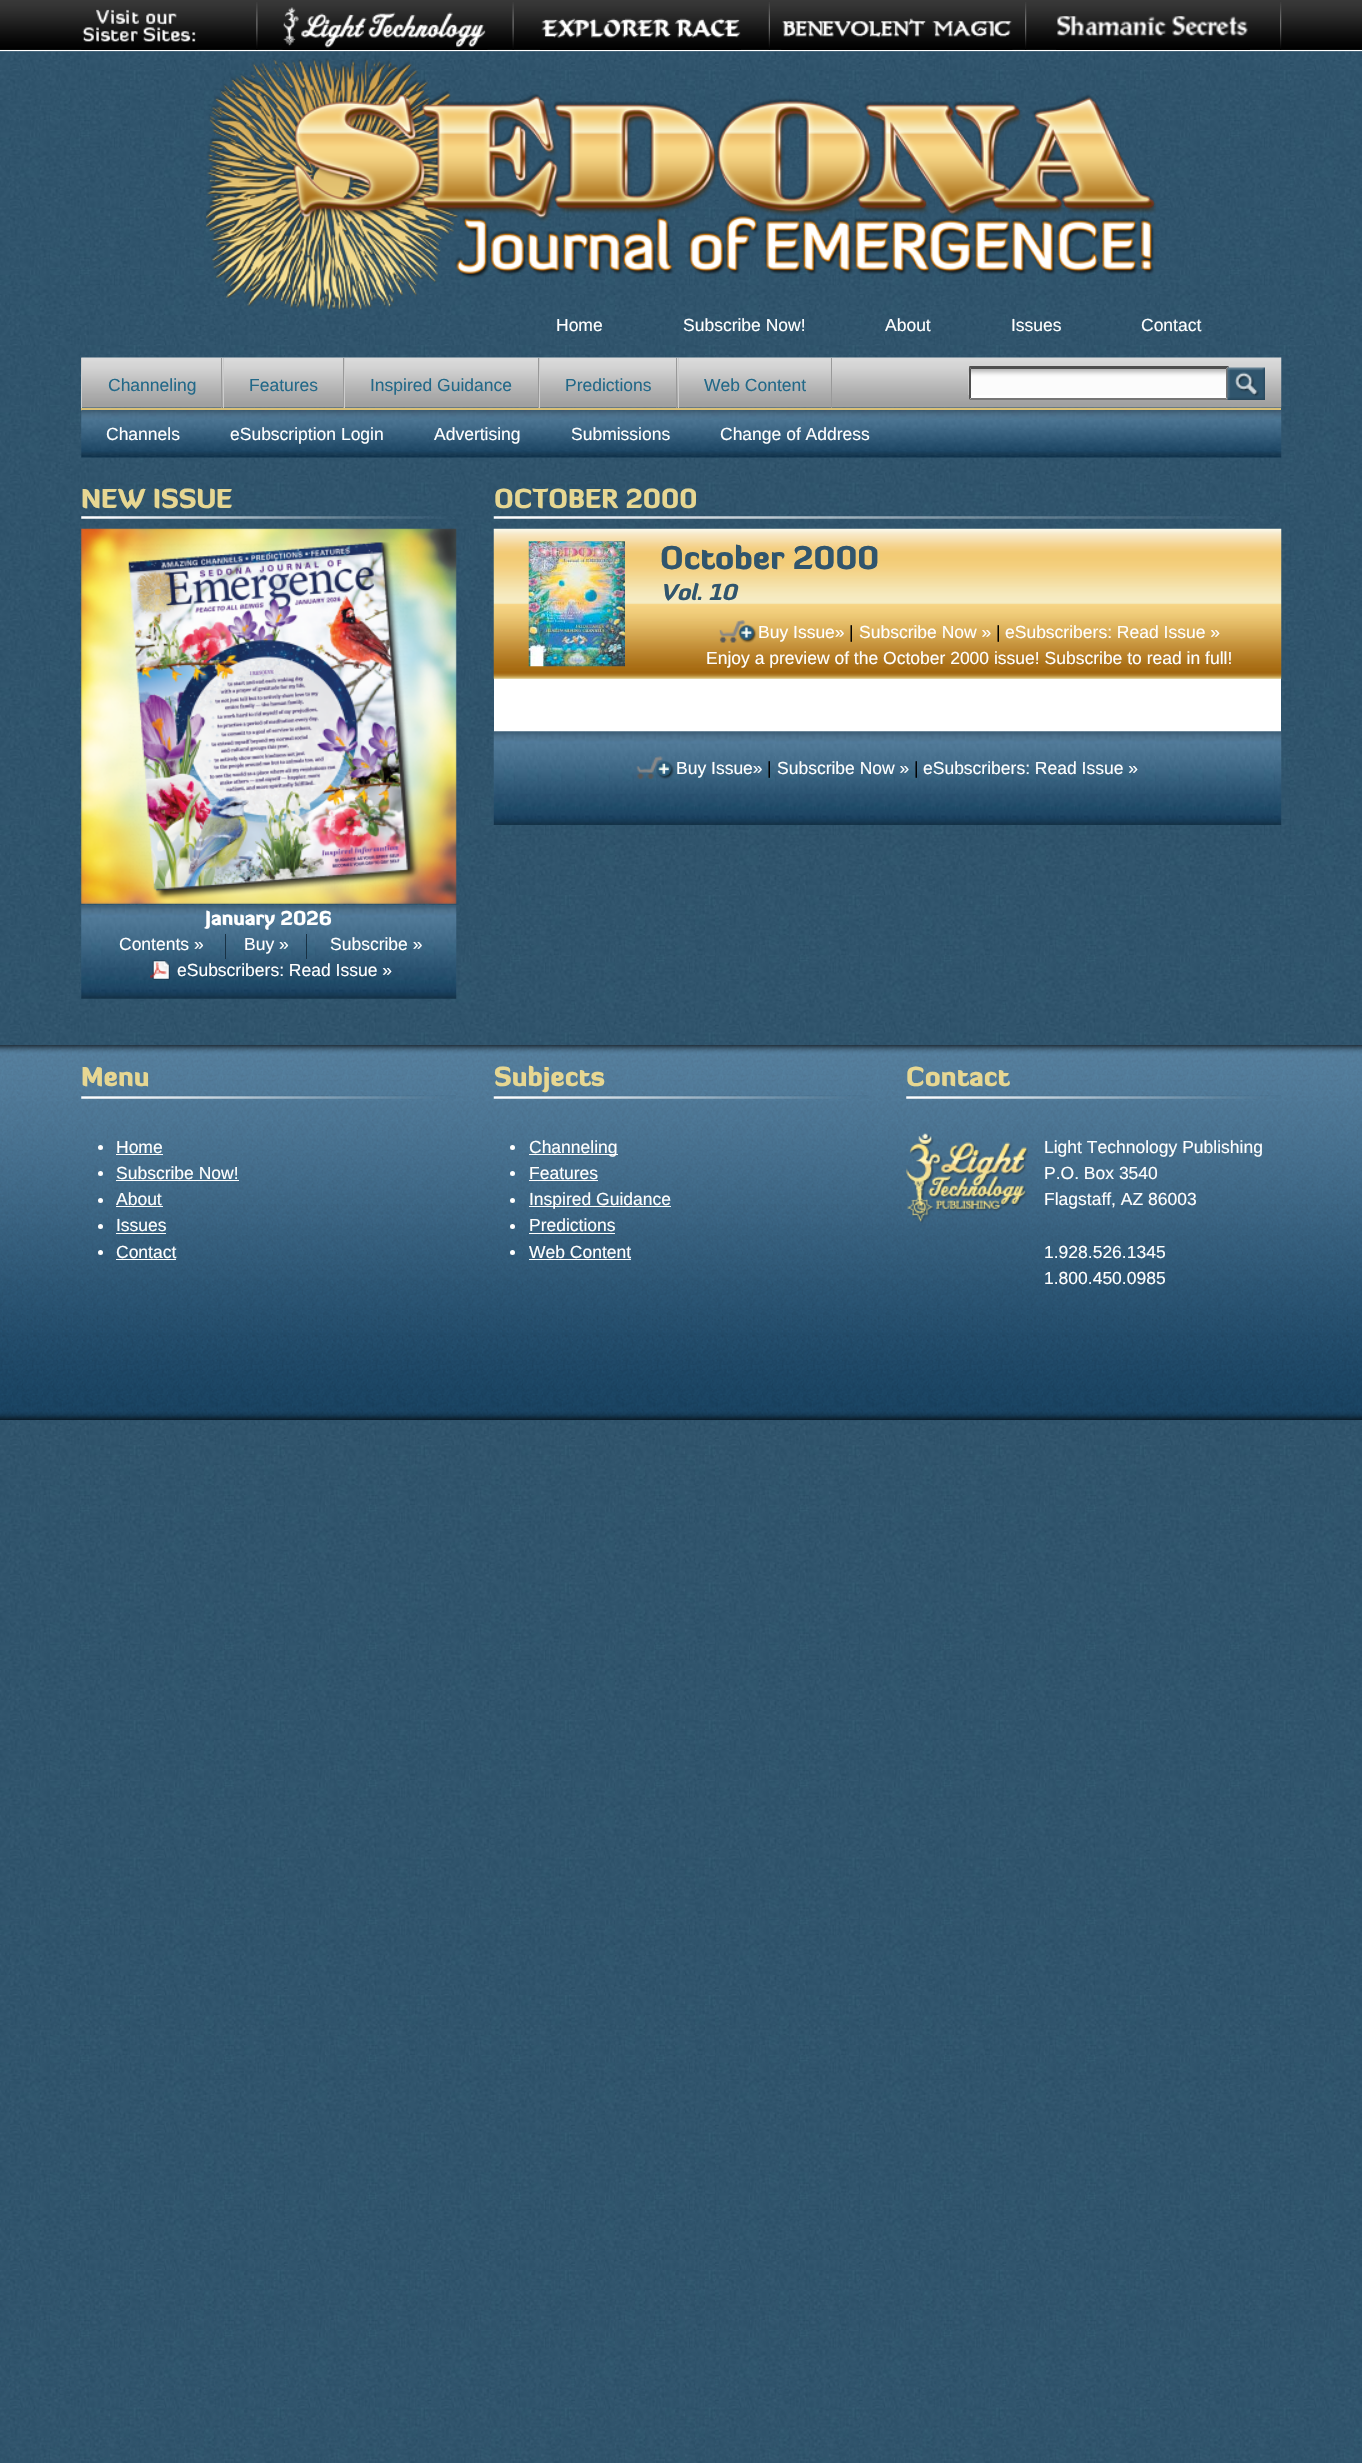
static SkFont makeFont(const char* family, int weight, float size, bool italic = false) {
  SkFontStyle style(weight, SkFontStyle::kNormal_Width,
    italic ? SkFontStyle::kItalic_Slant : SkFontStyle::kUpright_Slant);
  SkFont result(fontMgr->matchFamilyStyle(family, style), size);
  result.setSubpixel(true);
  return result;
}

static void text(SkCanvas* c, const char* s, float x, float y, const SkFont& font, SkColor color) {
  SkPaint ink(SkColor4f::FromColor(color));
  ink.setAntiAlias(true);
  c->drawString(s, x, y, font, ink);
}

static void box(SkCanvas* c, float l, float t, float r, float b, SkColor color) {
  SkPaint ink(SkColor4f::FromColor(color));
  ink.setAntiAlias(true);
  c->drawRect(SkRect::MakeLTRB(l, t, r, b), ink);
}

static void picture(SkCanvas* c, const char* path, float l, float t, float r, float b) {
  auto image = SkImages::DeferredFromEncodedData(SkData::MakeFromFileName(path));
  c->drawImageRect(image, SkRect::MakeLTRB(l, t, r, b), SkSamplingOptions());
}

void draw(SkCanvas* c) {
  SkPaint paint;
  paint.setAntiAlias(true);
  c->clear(0xffffffff);
  picture(c, "img_01.png", 0, 51, 1362, 2463);
  picture(c, "img_02.png", 0, 0, 1362, 52);
  box(c, 0, 50, 1362, 51, 0xffffffff);
  picture(c, "img_03.png", 1280, 2, 1282, 50);
  picture(c, "img_04.png", 81, 9, 198, 50);
  picture(c, "img_05.png", 256, 2, 258, 50);
  picture(c, "img_06.png", 282, 7, 488, 50);
  picture(c, "img_07.png", 512, 2, 514, 50);
  picture(c, "img_08.png", 540, 18, 741, 50);
  picture(c, "img_09.png", 768, 2, 770, 50);
  picture(c, "img_10.png", 781, 18, 1013, 50);
  picture(c, "img_03.png", 1025, 2, 1027, 50);
  picture(c, "img_11.png", 1056, 16, 1250, 50);
  picture(c, "img_12.png", 206, 58, 1156, 310);
  SkFont face1 = makeFont("Liberation Sans", 400, 17.5f);
  text(c, "Home", 556, 331, face1, 0xffffffff);
  text(c, "Subscribe Now!", 683, 331, face1, 0xffffffff);
  text(c, "About", 885, 331, face1, 0xffffffff);
  text(c, "Issues", 1011, 331, face1, 0xffffffff);
  text(c, "Contact", 1141, 331, face1, 0xffffffff);
  picture(c, "img_13.png", 81, 357, 1282, 408);
  box(c, 81, 408, 1281, 411, 0xffd9c077);
  box(c, 221, 358, 222, 408, 0xff999999);
  box(c, 81, 358, 82, 408, 0xffcccccc);
  text(c, "Channeling", 108, 391, face1, 0xff226888);
  box(c, 343, 358, 344, 408, 0xff999999);
  box(c, 223, 358, 224, 408, 0xffcccccc);
  text(c, "Features", 249, 391, face1, 0xff226888);
  box(c, 538, 358, 539, 408, 0xff999999);
  box(c, 344, 358, 345, 408, 0xffcccccc);
  text(c, "Inspired Guidance", 370, 391, face1, 0xff226888);
  box(c, 676, 358, 677, 408, 0xff999999);
  box(c, 539, 358, 540, 408, 0xffcccccc);
  text(c, "Predictions", 565, 391, face1, 0xff226888);
  box(c, 831, 358, 832, 408, 0xff999999);
  box(c, 678, 358, 679, 408, 0xffcccccc);
  text(c, "Web Content", 704, 391, face1, 0xff226888);
  box(c, 969, 366, 1229, 400, 0xffffffff);
  picture(c, "img_14.png", 968, 368, 1227, 395);
  paint.setColor(0xff4f4f4f);
  c->drawPath(SkPathBuilder().moveTo(969, 366).lineTo(1229, 366).lineTo(1226, 369).lineTo(971, 369).close().detach(), paint);
  paint.setColor(0xff767676);
  c->drawPath(SkPathBuilder().moveTo(1229, 366).lineTo(1229, 400).lineTo(1226, 397.5f).lineTo(1226, 369).close().detach(), paint);
  c->drawPath(SkPathBuilder().moveTo(1229, 400).lineTo(969, 400).lineTo(971, 398).lineTo(1226, 398).close().detach(), paint);
  paint.setColor(0xff4f4f4f);
  c->drawPath(SkPathBuilder().moveTo(969, 400).lineTo(969, 366).lineTo(971, 369).lineTo(971, 397.5f).close().detach(), paint);
  picture(c, "img_15.png", 1227, 367, 1265, 400);
  picture(c, "img_16.png", 81, 410, 1282, 458);
  text(c, "Channels", 106, 440, face1, 0xffffffff);
  text(c, "eSubscription Login", 230, 440, face1, 0xffffffff);
  text(c, "Advertising", 434, 440, face1, 0xffffffff);
  text(c, "Submissions", 571, 440, face1, 0xffffffff);
  text(c, "Change of Address", 720, 440, face1, 0xffffffff);
  picture(c, "img_17.png", 81, 516, 455, 519);
  SkFont face2 = makeFont("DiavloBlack", 900, 26.25f);
  text(c, "NEW ISSUE", 81, 508, face2, 0xffe7d792);
  picture(c, "img_18.png", 81, 528, 457, 904);
  picture(c, "img_19.png", 81, 905, 457, 999);
  SkFont face3 = makeFont("DiavloBlack", 900, 19.25f);
  text(c, "January 2026", 205, 925, face3, 0xffffffff);
  text(c, "Contents »", 119, 950, face1, 0xffffffff);
  text(c, "Buy »", 244, 950, face1, 0xffffffff);
  box(c, 306, 934, 307, 959, 0xff183144);
  box(c, 225, 934, 226, 959, 0xff183144);
  text(c, "Subscribe »", 330, 950, face1, 0xffffffff);
  picture(c, "img_20.png", 150, 960, 170, 980);
  text(c, "eSubscribers: Read Issue »", 177, 976, face1, 0xffffffff);
  picture(c, "img_21.png", 493, 516, 1280, 519);
  text(c, "OCTOBER 2000", 494, 508, face2, 0xffe7d792);
  box(c, 494, 678, 1281, 732, 0xffffffff);
  picture(c, "img_22.png", 493, 528, 1282, 679);
  picture(c, "img_23.png", 528, 541, 625, 667);
  SkFont face4 = makeFont("DiavloBlack", 900, 31.5f);
  text(c, "October 2000", 660, 569, face4, 0xff30556d);
  SkFont face5 = makeFont("DiavloBlack", 900, 22, true);
  text(c, "Vol. 10", 660, 600, face5, 0xff30556d);
  picture(c, "img_24.png", 719, 620, 757, 643);
  text(c, "Buy Issue»", 758, 638, face1, 0xffffffff);
  text(c, "|", 849, 638, face1, 0xff000000);
  text(c, "Subscribe Now »", 859, 638, face1, 0xffffffff);
  text(c, "|", 996, 638, face1, 0xff000000);
  text(c, "eSubscribers: Read Issue »", 1005, 638, face1, 0xffffffff);
  text(c, "Enjoy a preview of the October 2000 issue! Subscribe to read in full!", 706, 664, face1, 0xffffffff);
  picture(c, "img_25.png", 493, 731, 1282, 825);
  picture(c, "img_26.png", 636, 756, 674, 779);
  text(c, "Buy Issue»", 676, 774, face1, 0xffffffff);
  text(c, "|", 767, 774, face1, 0xff000000);
  text(c, "Subscribe Now »", 777, 774, face1, 0xffffffff);
  text(c, "|", 914, 774, face1, 0xff000000);
  text(c, "eSubscribers: Read Issue »", 923, 774, face1, 0xffffffff);
  picture(c, "img_27.png", 0, 1045, 1362, 1420);
  picture(c, "img_28.png", 81, 1095, 456, 1099);
  text(c, "Menu", 81, 1086, face2, 0xffe7d792);
  paint.setColor(0xffffffff);
  c->drawCircle(100.5f, 1147.5f, 2.5f, paint);
  text(c, "Home", 116, 1153, face1, 0xffffffff);
  box(c, 116, 1154, 163, 1155, 0xffffffff);
  c->drawCircle(100.5f, 1173.5f, 2.5f, paint);
  text(c, "Subscribe Now!", 116, 1179, face1, 0xffffffff);
  box(c, 116, 1180, 239, 1181, 0xffffffff);
  c->drawCircle(100.5f, 1200.5f, 2.5f, paint);
  text(c, "About", 116, 1205, face1, 0xffffffff);
  box(c, 116, 1206, 163, 1207, 0xffffffff);
  c->drawCircle(100.5f, 1226.5f, 2.5f, paint);
  text(c, "Issues", 116, 1231, face1, 0xffffffff);
  box(c, 116, 1233, 166, 1234, 0xffffffff);
  c->drawCircle(100.5f, 1252.5f, 2.5f, paint);
  text(c, "Contact", 116, 1258, face1, 0xffffffff);
  box(c, 116, 1259, 176, 1260, 0xffffffff);
  picture(c, "img_29.png", 493, 1095, 869, 1099);
  text(c, "Subjects", 494, 1086, face2, 0xffe7d792);
  c->drawCircle(512.5f, 1147.5f, 2.5f, paint);
  box(c, 529, 1154, 618, 1155, 0xffffffff);
  text(c, "Channeling", 529, 1153, face1, 0xffffffff);
  c->drawCircle(512.5f, 1173.5f, 2.5f, paint);
  text(c, "Features", 529, 1179, face1, 0xffffffff);
  box(c, 529, 1180, 598, 1181, 0xffffffff);
  c->drawCircle(512.5f, 1200.5f, 2.5f, paint);
  box(c, 529, 1206, 671, 1207, 0xffffffff);
  text(c, "Inspired Guidance", 529, 1205, face1, 0xffffffff);
  c->drawCircle(512.5f, 1226.5f, 2.5f, paint);
  text(c, "Predictions", 529, 1231, face1, 0xffffffff);
  box(c, 529, 1233, 615, 1234, 0xffffffff);
  c->drawCircle(512.5f, 1252.5f, 2.5f, paint);
  text(c, "Web Content", 529, 1258, face1, 0xffffffff);
  box(c, 529, 1259, 631, 1260, 0xffffffff);
  picture(c, "img_30.png", 906, 1095, 1281, 1099);
  text(c, "Contact", 906, 1086, face2, 0xffe7d792);
  picture(c, "img_31.png", 906, 1133, 1028, 1223);
  text(c, "Light Technology Publishing", 1044, 1153, face1, 0xffffffff);
  text(c, "P.O. Box 3540", 1044, 1179, face1, 0xffffffff);
  text(c, "Flagstaff, AZ 86003", 1044, 1205, face1, 0xffffffff);
  text(c, "1.928.526.1345", 1044, 1258, face1, 0xffffffff);
  text(c, "1.800.450.0985", 1044, 1284, face1, 0xffffffff);
}
